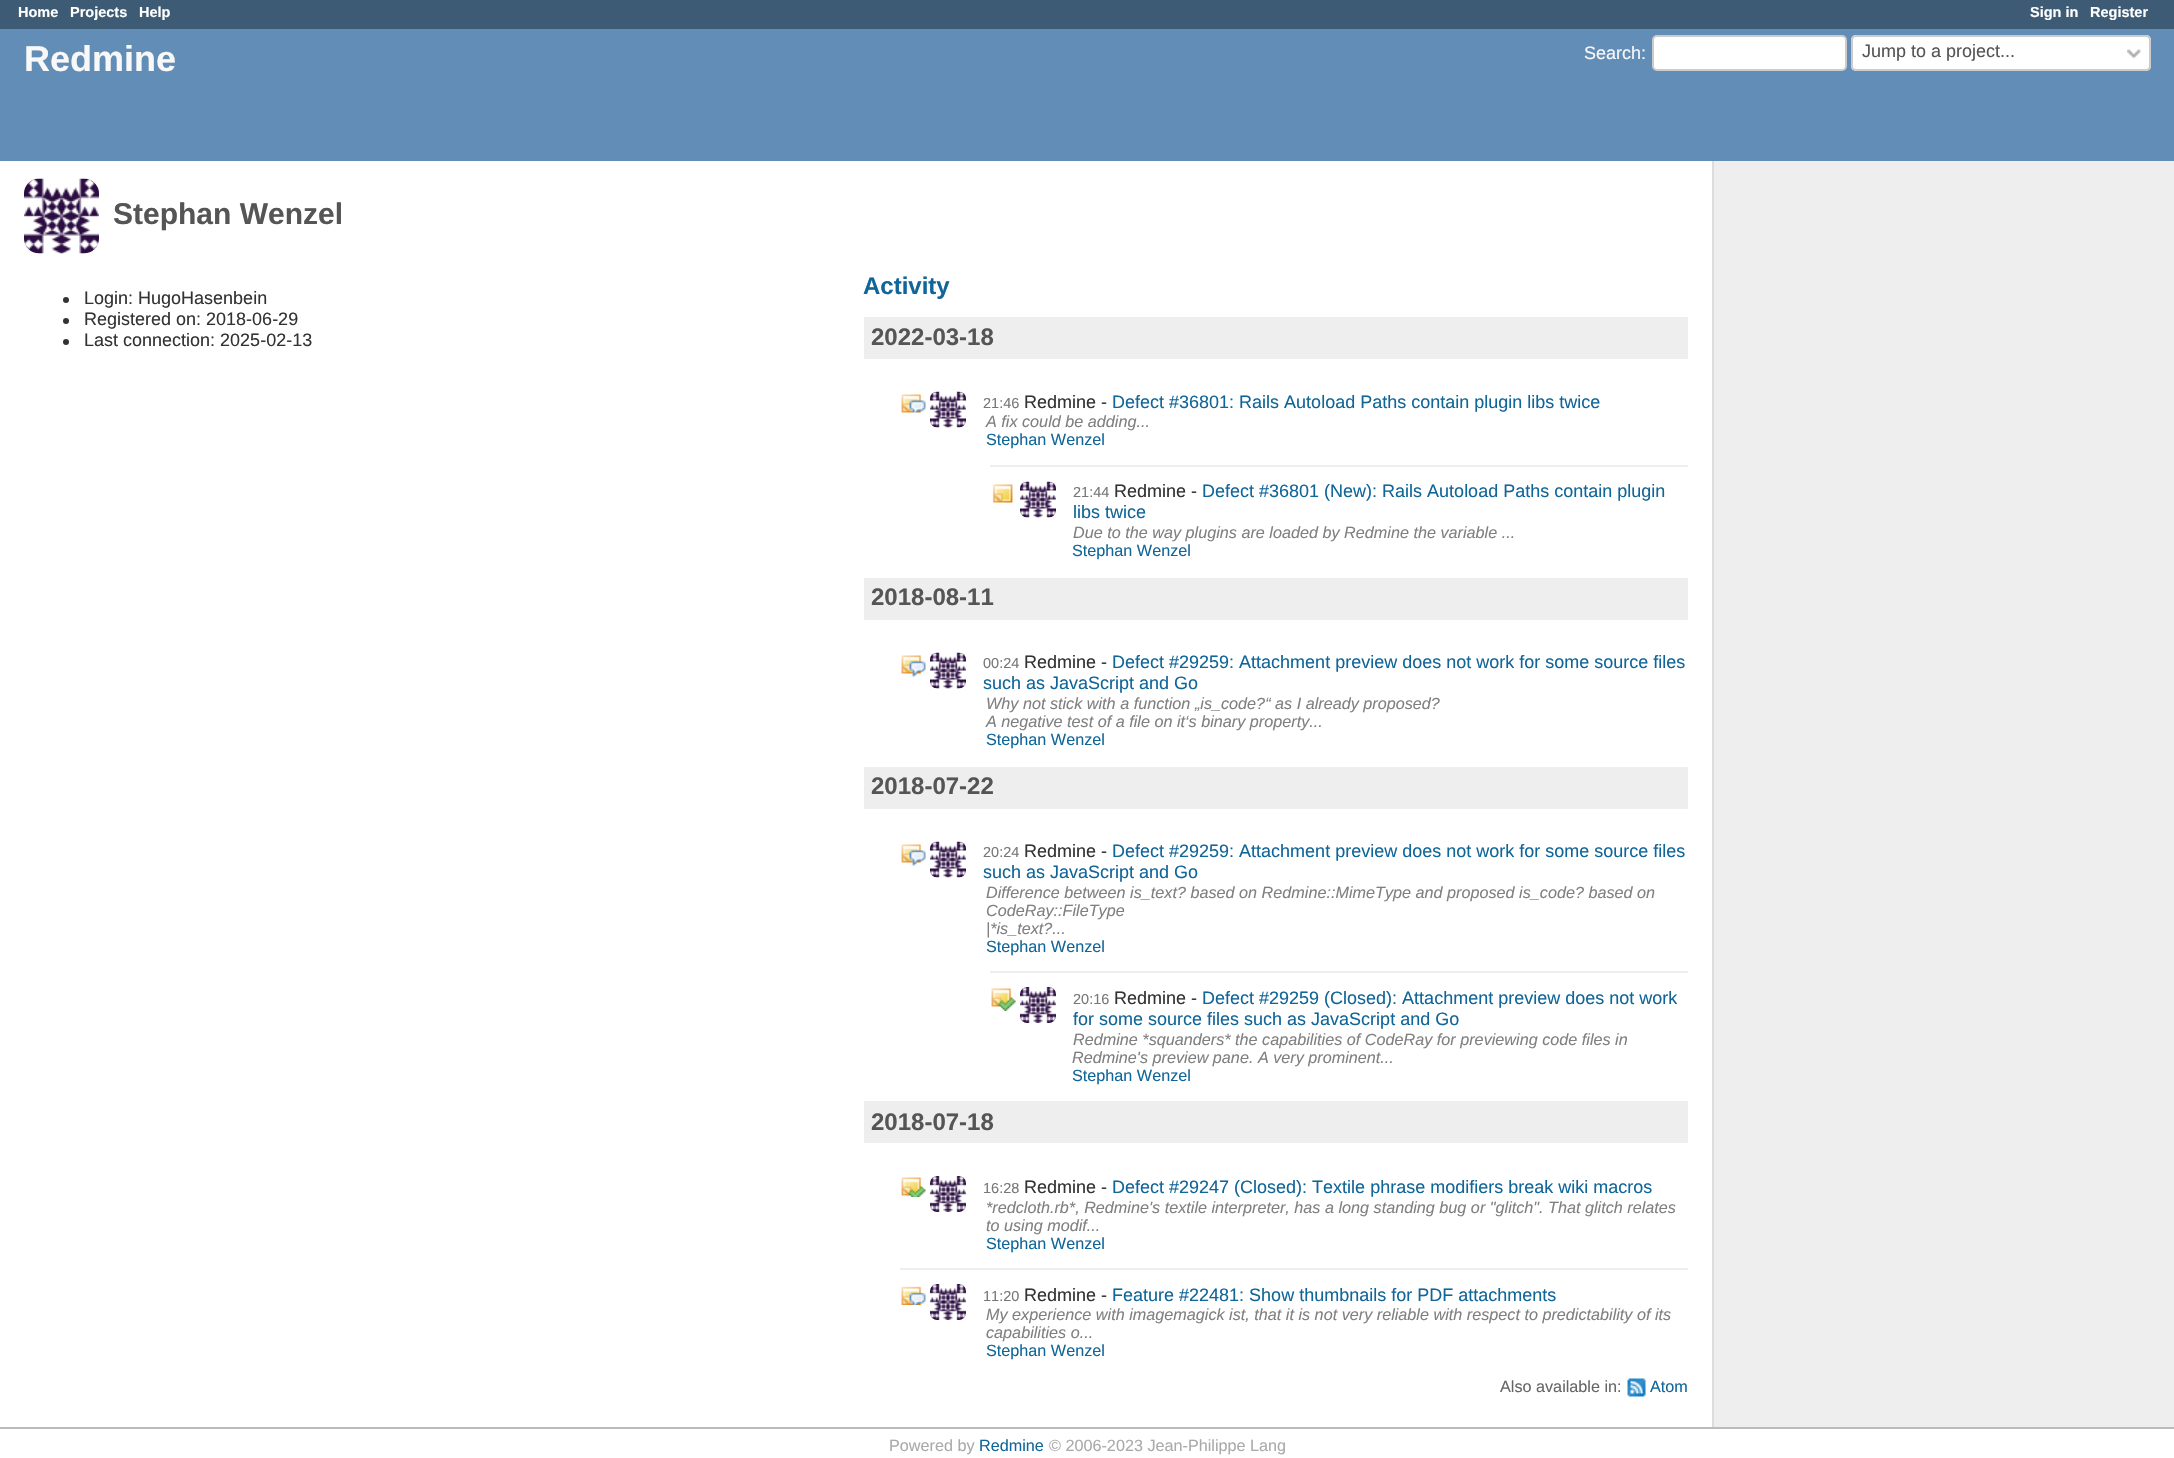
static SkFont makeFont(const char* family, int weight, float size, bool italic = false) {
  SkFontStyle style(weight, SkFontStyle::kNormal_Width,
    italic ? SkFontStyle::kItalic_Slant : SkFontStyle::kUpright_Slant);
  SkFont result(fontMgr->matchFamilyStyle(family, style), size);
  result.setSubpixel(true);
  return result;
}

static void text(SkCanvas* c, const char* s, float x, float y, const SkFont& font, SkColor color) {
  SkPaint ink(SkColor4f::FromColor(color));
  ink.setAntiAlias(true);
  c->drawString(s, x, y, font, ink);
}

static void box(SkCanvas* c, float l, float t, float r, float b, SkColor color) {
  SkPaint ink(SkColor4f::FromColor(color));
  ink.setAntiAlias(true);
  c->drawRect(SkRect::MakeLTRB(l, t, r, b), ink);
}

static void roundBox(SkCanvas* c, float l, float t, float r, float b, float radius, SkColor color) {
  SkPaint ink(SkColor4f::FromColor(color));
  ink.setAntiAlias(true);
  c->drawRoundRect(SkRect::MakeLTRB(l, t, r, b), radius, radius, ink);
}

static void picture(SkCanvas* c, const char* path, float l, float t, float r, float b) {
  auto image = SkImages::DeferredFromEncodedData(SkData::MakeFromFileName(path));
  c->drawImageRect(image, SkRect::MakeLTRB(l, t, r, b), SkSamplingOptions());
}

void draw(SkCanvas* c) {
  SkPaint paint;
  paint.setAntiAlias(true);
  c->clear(0xffffffff);
  box(c, 0, 0, 2174, 29, 0xff3e5b76);
  SkFont face1 = makeFont("Liberation Sans", 700, 14.5f);
  text(c, "Home", 18, 17, face1, 0xffffffff);
  text(c, "Projects", 70, 17, face1, 0xffffffff);
  text(c, "Help", 139, 17, face1, 0xffffffff);
  text(c, "Sign in", 2030, 17, face1, 0xffffffff);
  text(c, "Register", 2090, 17, face1, 0xffffffff);
  box(c, 0, 29, 2174, 161, 0xff628db6);
  SkFont face2 = makeFont("Liberation Sans", 700, 36);
  text(c, "Redmine", 24, 71, face2, 0xfff8f8f8);
  SkFont face3 = makeFont("Liberation Sans", 400, 18);
  text(c, "Search:", 1584, 59, face3, 0xfff8f8f8);
  paint.setColor(0xffffffff);
  c->drawRoundRect(SkRect::MakeLTRB(1653, 36, 1846, 70), 4, 4, paint);
  paint.setStyle(SkPaint::kStroke_Style);
  paint.setStrokeWidth(2);
  paint.setColor(0xffcccccc);
  c->drawRoundRect(SkRect::MakeLTRB(1653, 36, 1846, 70), 4, 4, paint);
  roundBox(c, 1851, 35, 2151, 71, 5, 0xffffffff);
  picture(c, "img_01.png", 2127, 49, 2141, 59);
  c->drawRoundRect(SkRect::MakeLTRB(1852, 36, 2150, 70), 4, 4, paint);
  text(c, "Jump to a project...", 1862, 57, face3, 0xff555555);
  picture(c, "img_02.png", 24, 178, 99, 254);
  SkFont face4 = makeFont("Liberation Sans", 700, 30);
  text(c, "Stephan Wenzel", 113, 224, face4, 0xff555555);
  paint.setStyle(SkPaint::kFill_Style);
  paint.setColor(0xff333333);
  c->drawCircle(66, 300, 3, paint);
  text(c, "Login: HugoHasenbein", 84, 304, face3, 0xff333333);
  c->drawCircle(66, 321, 3, paint);
  text(c, "Registered on: 2018-06-29", 84, 325, face3, 0xff333333);
  c->drawCircle(66, 342, 3, paint);
  text(c, "Last connection: 2025-02-13", 84, 346, face3, 0xff333333);
  SkFont face5 = makeFont("Liberation Sans", 700, 24);
  text(c, "Activity", 863, 294, face5, 0xff116699);
  box(c, 864, 317, 1688, 359, 0xffeeeeee);
  text(c, "2022-03-18", 871, 345, face5, 0xff555555);
  picture(c, "img_03.png", 901, 394, 926, 413);
  picture(c, "img_04.png", 930, 391, 966, 428);
  SkFont face6 = makeFont("Liberation Sans", 400, 14.5f);
  text(c, "21:46", 983, 408, face6, 0xff777777);
  text(c, "Redmine -", 1024, 408, face3, 0xff333333);
  text(c, "Defect #36801: Rails Autoload Paths contain plugin libs twice", 1112, 408, face3, 0xff116699);
  SkFont face7 = makeFont("Liberation Sans", 400, 16.2f, true);
  text(c, "A fix could be adding...", 986, 427, face7, 0xff808080);
  SkFont face8 = makeFont("Liberation Sans", 400, 16.2f);
  text(c, "Stephan Wenzel", 986, 445, face8, 0xff116699);
  picture(c, "img_05.png", 992, 484, 1013, 503);
  box(c, 990, 465, 1688, 467, 0xffeeeeee);
  picture(c, "img_06.png", 1020, 481, 1056, 518);
  text(c, "21:44", 1073, 497, face6, 0xff777777);
  text(c, "Redmine -", 1114, 497, face3, 0xff333333);
  text(c, "Defect #36801 (New): Rails Autoload Paths contain plugin", 1202, 497, face3, 0xff116699);
  text(c, "libs twice", 1073, 518, face3, 0xff116699);
  text(c, "Due to the way plugins are loaded by Redmine the variable ...", 1073, 538, face7, 0xff808080);
  text(c, "Stephan Wenzel", 1072, 556, face8, 0xff116699);
  box(c, 864, 578, 1688, 620, 0xffeeeeee);
  text(c, "2018-08-11", 871, 605, face5, 0xff555555);
  picture(c, "img_07.png", 901, 655, 926, 677);
  picture(c, "img_04.png", 930, 652, 966, 689);
  text(c, "00:24", 983, 668, face6, 0xff777777);
  text(c, "Redmine -", 1024, 668, face3, 0xff333333);
  text(c, "Defect #29259: Attachment preview does not work for some source files", 1112, 668, face3, 0xff116699);
  text(c, "such as JavaScript and Go", 983, 689, face3, 0xff116699);
  text(c, "Why not stick with a function „is_code?“ as I already proposed?", 986, 709, face7, 0xff808080);
  text(c, "A negative test of a file on it‘s binary property...", 986, 727, face7, 0xff808080);
  text(c, "Stephan Wenzel", 986, 745, face8, 0xff116699);
  box(c, 864, 767, 1688, 809, 0xffeeeeee);
  text(c, "2018-07-22", 871, 794, face5, 0xff555555);
  picture(c, "img_07.png", 901, 844, 926, 866);
  picture(c, "img_04.png", 930, 841, 966, 878);
  text(c, "20:24", 983, 857, face6, 0xff777777);
  text(c, "Redmine -", 1024, 857, face3, 0xff333333);
  text(c, "Defect #29259: Attachment preview does not work for some source files", 1112, 857, face3, 0xff116699);
  text(c, "such as JavaScript and Go", 983, 878, face3, 0xff116699);
  text(c, "Difference between is_text? based on Redmine::MimeType and proposed is_code? based on", 986, 898, face7, 0xff808080);
  text(c, "CodeRay::FileType", 986, 916, face7, 0xff808080);
  text(c, "|*is_text?...", 986, 934, face7, 0xff808080);
  text(c, "Stephan Wenzel", 986, 952, face8, 0xff116699);
  picture(c, "img_08.png", 991, 988, 1016, 1011);
  box(c, 990, 971, 1688, 973, 0xffeeeeee);
  picture(c, "img_09.png", 1020, 987, 1056, 1023);
  text(c, "20:16", 1073, 1004, face6, 0xff777777);
  text(c, "Redmine -", 1114, 1004, face3, 0xff333333);
  text(c, "Defect #29259 (Closed): Attachment preview does not work", 1202, 1004, face3, 0xff116699);
  text(c, "for some source files such as JavaScript and Go", 1073, 1025, face3, 0xff116699);
  text(c, "Redmine *squanders* the capabilities of CodeRay for previewing code files in", 1073, 1045, face7, 0xff808080);
  text(c, "Redmine's preview pane. A very prominent...", 1072, 1063, face7, 0xff808080);
  text(c, "Stephan Wenzel", 1072, 1081, face8, 0xff116699);
  box(c, 864, 1101, 1688, 1143, 0xffeeeeee);
  text(c, "2018-07-18", 871, 1130, face5, 0xff555555);
  picture(c, "img_10.png", 901, 1177, 926, 1197);
  picture(c, "img_11.png", 930, 1176, 966, 1212);
  text(c, "16:28", 983, 1193, face6, 0xff777777);
  text(c, "Redmine -", 1024, 1193, face3, 0xff333333);
  text(c, "Defect #29247 (Closed): Textile phrase modifiers break wiki macros", 1112, 1193, face3, 0xff116699);
  text(c, "*redcloth.rb*, Redmine's textile interpreter, has a long standing bug or \"glitch\". That glitch relates", 986, 1213, face7, 0xff808080);
  text(c, "to using modif...", 986, 1231, face7, 0xff808080);
  text(c, "Stephan Wenzel", 986, 1249, face8, 0xff116699);
  picture(c, "img_12.png", 901, 1286, 926, 1305);
  box(c, 900, 1268, 1688, 1270, 0xffeeeeee);
  picture(c, "img_11.png", 930, 1284, 966, 1320);
  text(c, "11:20", 983, 1301, face6, 0xff777777);
  text(c, "Redmine -", 1024, 1301, face3, 0xff333333);
  text(c, "Feature #22481: Show thumbnails for PDF attachments", 1112, 1301, face3, 0xff116699);
  text(c, "My experience with imagemagick ist, that it is not very reliable with respect to predictability of its", 986, 1320, face7, 0xff808080);
  text(c, "capabilities o...", 986, 1338, face7, 0xff808080);
  text(c, "Stephan Wenzel", 986, 1356, face8, 0xff116699);
  text(c, "Also available in:", 1500, 1392, face8, 0xff666666);
  picture(c, "img_13.png", 1627, 1378, 1646, 1397);
  text(c, "Atom", 1650, 1392, face8, 0xff116699);
  box(c, 1714, 161, 2174, 1427, 0xffeeeeee);
  box(c, 1712, 161, 1714, 1427, 0xffdddddd);
  box(c, 0, 1427, 2174, 1429, 0xffbbbbbb);
  text(c, "Powered by", 889, 1451, face8, 0xffaaaaaa);
  text(c, "Redmine", 979, 1451, face8, 0xff116699);
  text(c, "© 2006-2023 Jean-Philippe Lang", 1049, 1451, face8, 0xffaaaaaa);
}
